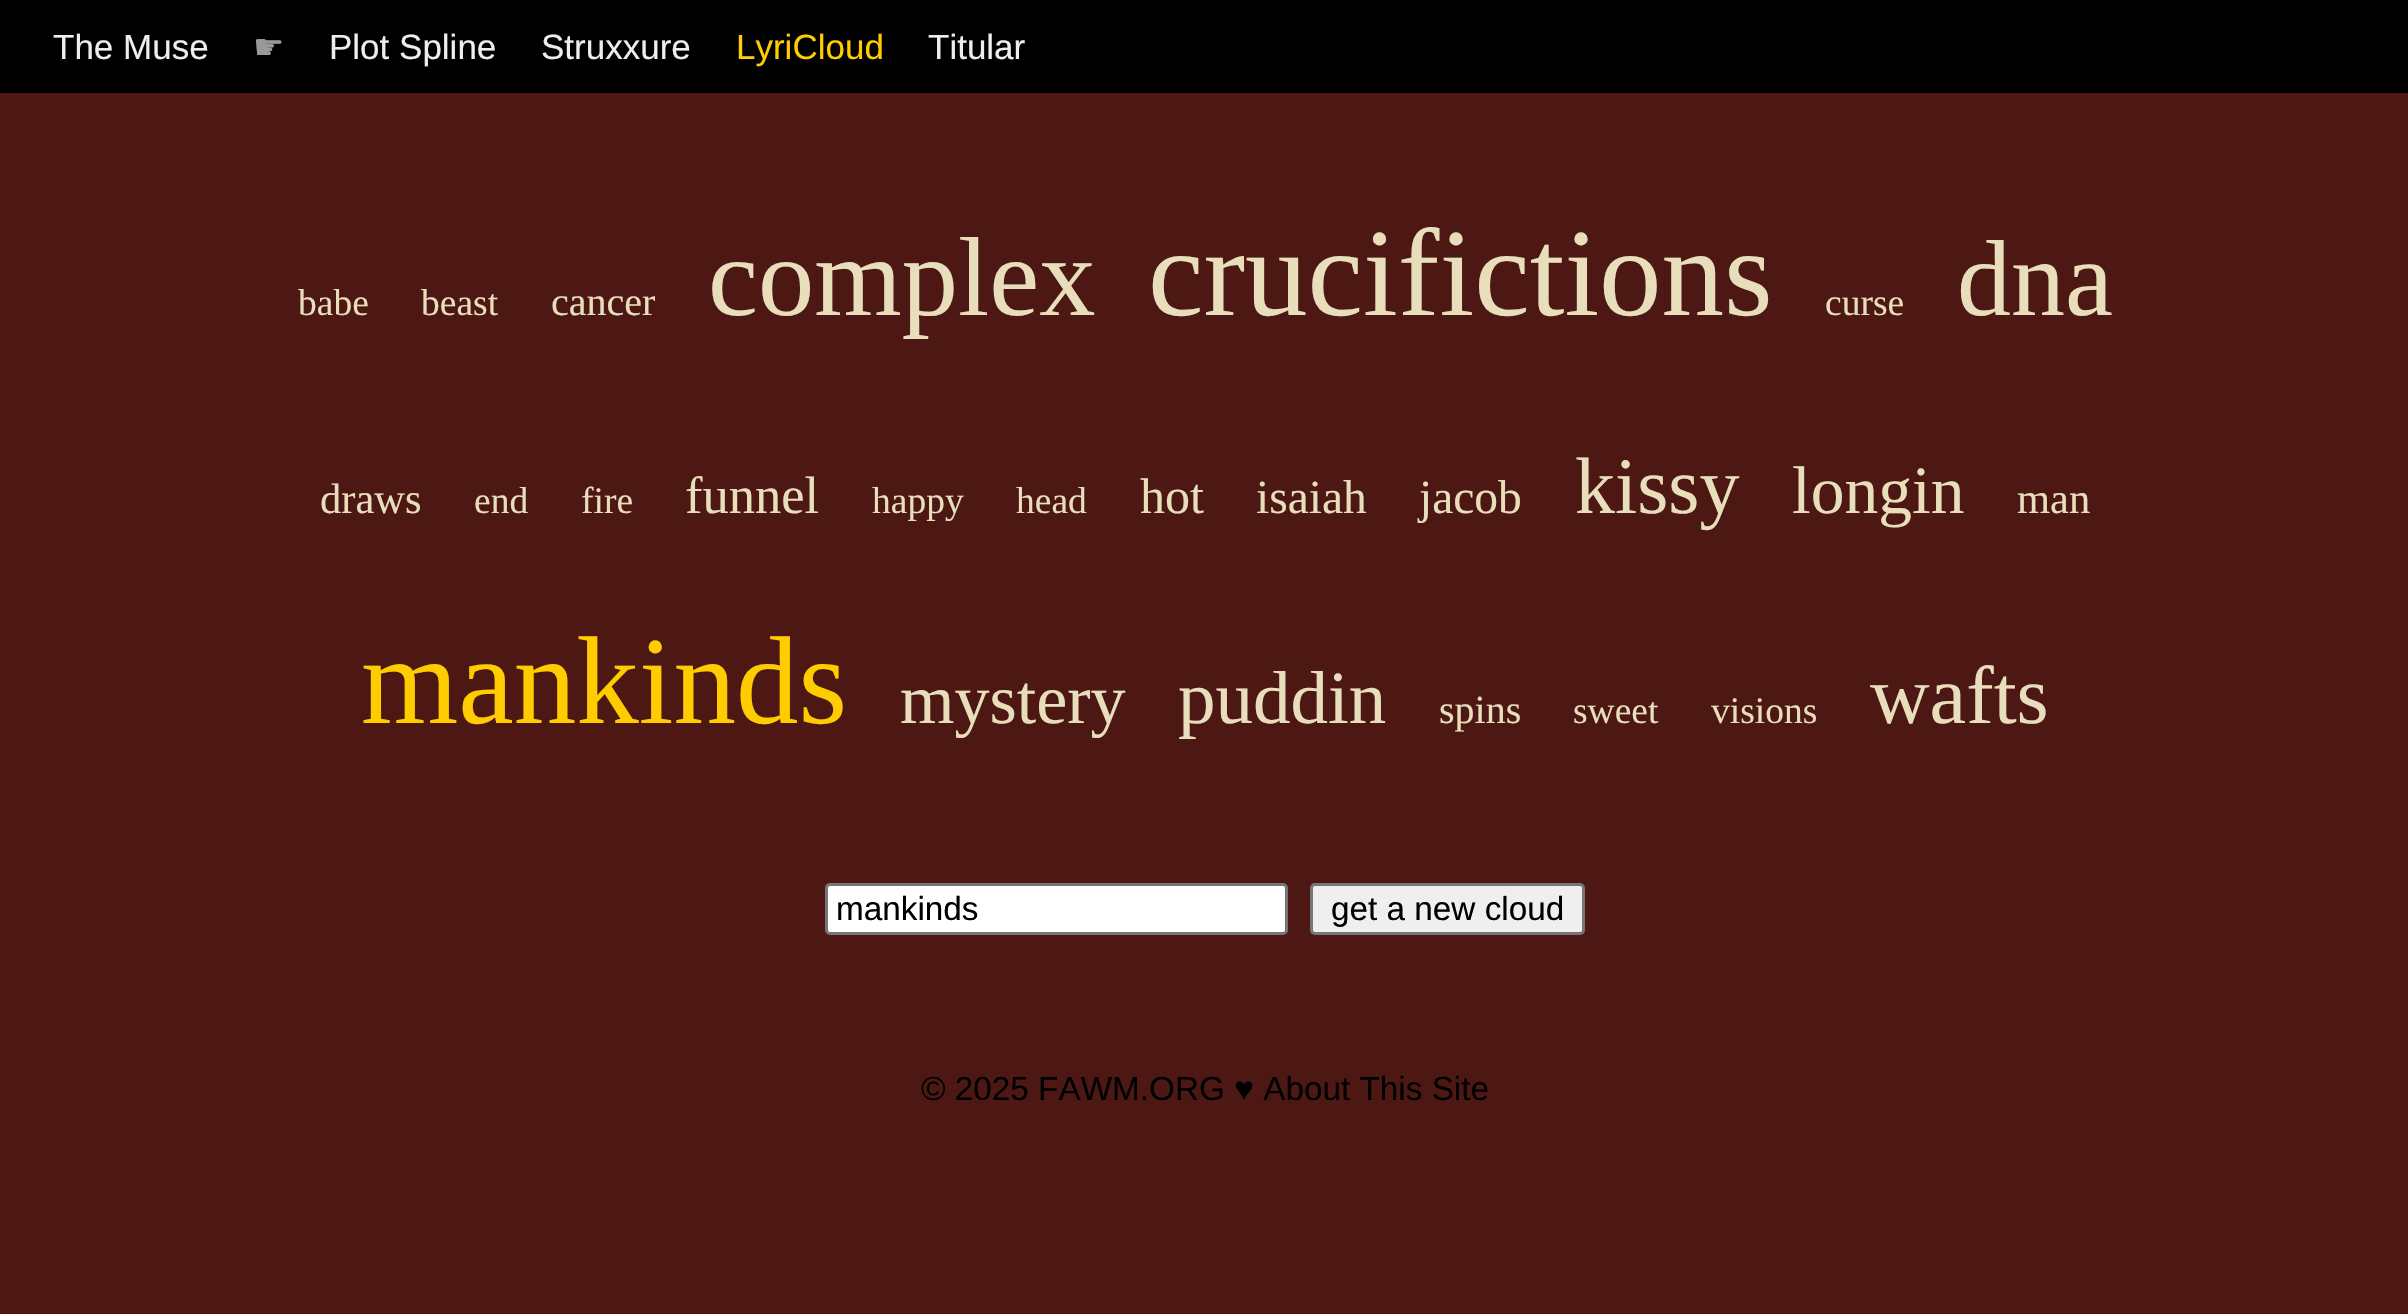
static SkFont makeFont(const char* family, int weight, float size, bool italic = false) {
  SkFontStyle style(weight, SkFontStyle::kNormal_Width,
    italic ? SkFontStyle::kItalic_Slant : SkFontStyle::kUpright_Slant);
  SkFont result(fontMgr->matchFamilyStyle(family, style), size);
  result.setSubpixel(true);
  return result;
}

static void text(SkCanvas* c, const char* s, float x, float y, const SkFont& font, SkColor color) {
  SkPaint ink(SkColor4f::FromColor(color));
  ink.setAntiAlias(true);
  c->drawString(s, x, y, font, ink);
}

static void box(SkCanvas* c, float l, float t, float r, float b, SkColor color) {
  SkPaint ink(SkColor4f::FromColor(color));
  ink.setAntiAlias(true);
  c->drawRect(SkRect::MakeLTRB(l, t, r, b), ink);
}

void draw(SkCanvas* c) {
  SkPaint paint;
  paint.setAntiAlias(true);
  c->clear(0xff4d1814);
  box(c, 0, 0, 2408, 93, 0xff000000);
  SkFont face1 = makeFont("Liberation Sans", 400, 35);
  text(c, "The Muse", 53, 59, face1, 0xffeeeeee);
  SkFont face2 = makeFont("DejaVu Sans", 400, 35);
  text(c, "☛", 253, 59, face2, 0xff999999);
  text(c, "Plot Spline", 329, 59, face1, 0xffeeeeee);
  text(c, "Struxxure", 541, 59, face1, 0xffeeeeee);
  text(c, "LyriCloud", 736, 59, face1, 0xffffcc00);
  text(c, "Titular", 928, 59, face1, 0xffeeeeee);
  SkFont face3 = makeFont("Liberation Serif", 400, 37.5f);
  text(c, "babe", 298, 315, face3, 0xffe8debb);
  text(c, "beast", 421, 315, face3, 0xffe8debb);
  SkFont face4 = makeFont("Liberation Serif", 400, 40);
  text(c, "cancer", 551, 315, face4, 0xffe8debb);
  SkFont face5 = makeFont("Liberation Serif", 400, 112.5f);
  text(c, "complex", 708, 315, face5, 0xffe8debb);
  SkFont face6 = makeFont("Liberation Serif", 400, 125);
  text(c, "crucifictions", 1148, 315, face6, 0xffe8debb);
  text(c, "curse", 1825, 315, face3, 0xffe8debb);
  SkFont face7 = makeFont("Liberation Serif", 400, 108);
  text(c, "dna", 1957, 315, face7, 0xffe8debb);
  SkFont face8 = makeFont("Liberation Serif", 400, 42.5f);
  text(c, "draws", 320, 513, face8, 0xffe8debb);
  text(c, "end", 474, 513, face3, 0xffe8debb);
  text(c, "fire", 581, 513, face3, 0xffe8debb);
  SkFont face9 = makeFont("Liberation Serif", 400, 52.5f);
  text(c, "funnel", 685, 513, face9, 0xffe8debb);
  text(c, "happy", 872, 513, face3, 0xffe8debb);
  text(c, "head", 1016, 513, face3, 0xffe8debb);
  SkFont face10 = makeFont("Liberation Serif", 400, 50);
  text(c, "hot", 1140, 513, face10, 0xffe8debb);
  SkFont face11 = makeFont("Liberation Serif", 400, 47.5f);
  text(c, "isaiah", 1256, 513, face11, 0xffe8debb);
  text(c, "jacob", 1419, 513, face11, 0xffe8debb);
  SkFont face12 = makeFont("Liberation Serif", 400, 80);
  text(c, "kissy", 1575, 513, face12, 0xffe8debb);
  SkFont face13 = makeFont("Liberation Serif", 400, 67.5f);
  text(c, "longin", 1792, 513, face13, 0xffe8debb);
  text(c, "man", 2017, 513, face8, 0xffe8debb);
  text(c, "mankinds", 361, 723, face6, 0xffffcc00);
  SkFont face14 = makeFont("Liberation Serif", 400, 70);
  text(c, "mystery", 900, 723, face14, 0xffe8debb);
  SkFont face15 = makeFont("Liberation Serif", 400, 75);
  text(c, "puddin", 1178, 723, face15, 0xffe8debb);
  text(c, "spins", 1439, 723, face4, 0xffe8debb);
  text(c, "sweet", 1573, 723, face3, 0xffe8debb);
  text(c, "visions", 1711, 723, face3, 0xffe8debb);
  SkFont face16 = makeFont("Liberation Serif", 400, 82.5f);
  text(c, "wafts", 1870, 723, face16, 0xffe8debb);
  paint.setColor(0xffffffff);
  c->drawRoundRect(SkRect::MakeLTRB(826.5f, 884.5f, 1286.5f, 933.5f), 3.5f, 3.5f, paint);
  paint.setStyle(SkPaint::kStroke_Style);
  paint.setStrokeWidth(3);
  paint.setColor(0xff767676);
  c->drawRoundRect(SkRect::MakeLTRB(826.5f, 884.5f, 1286.5f, 933.5f), 3.5f, 3.5f, paint);
  SkFont face17 = makeFont("Liberation Sans", 400, 33.3f);
  text(c, "mankinds", 836, 920, face17, 0xff000000);
  paint.setStyle(SkPaint::kFill_Style);
  paint.setColor(0xffefefef);
  c->drawRoundRect(SkRect::MakeLTRB(1311.5f, 884.5f, 1583.5f, 933.5f), 3.5f, 3.5f, paint);
  paint.setStyle(SkPaint::kStroke_Style);
  paint.setColor(0xff767676);
  c->drawRoundRect(SkRect::MakeLTRB(1311.5f, 884.5f, 1583.5f, 933.5f), 3.5f, 3.5f, paint);
  text(c, "get a new cloud", 1331, 920, face17, 0xff000000);
  text(c, "© 2025 FAWM.ORG ♥ About This Site", 921, 1100, face17, 0xff000000);
}
